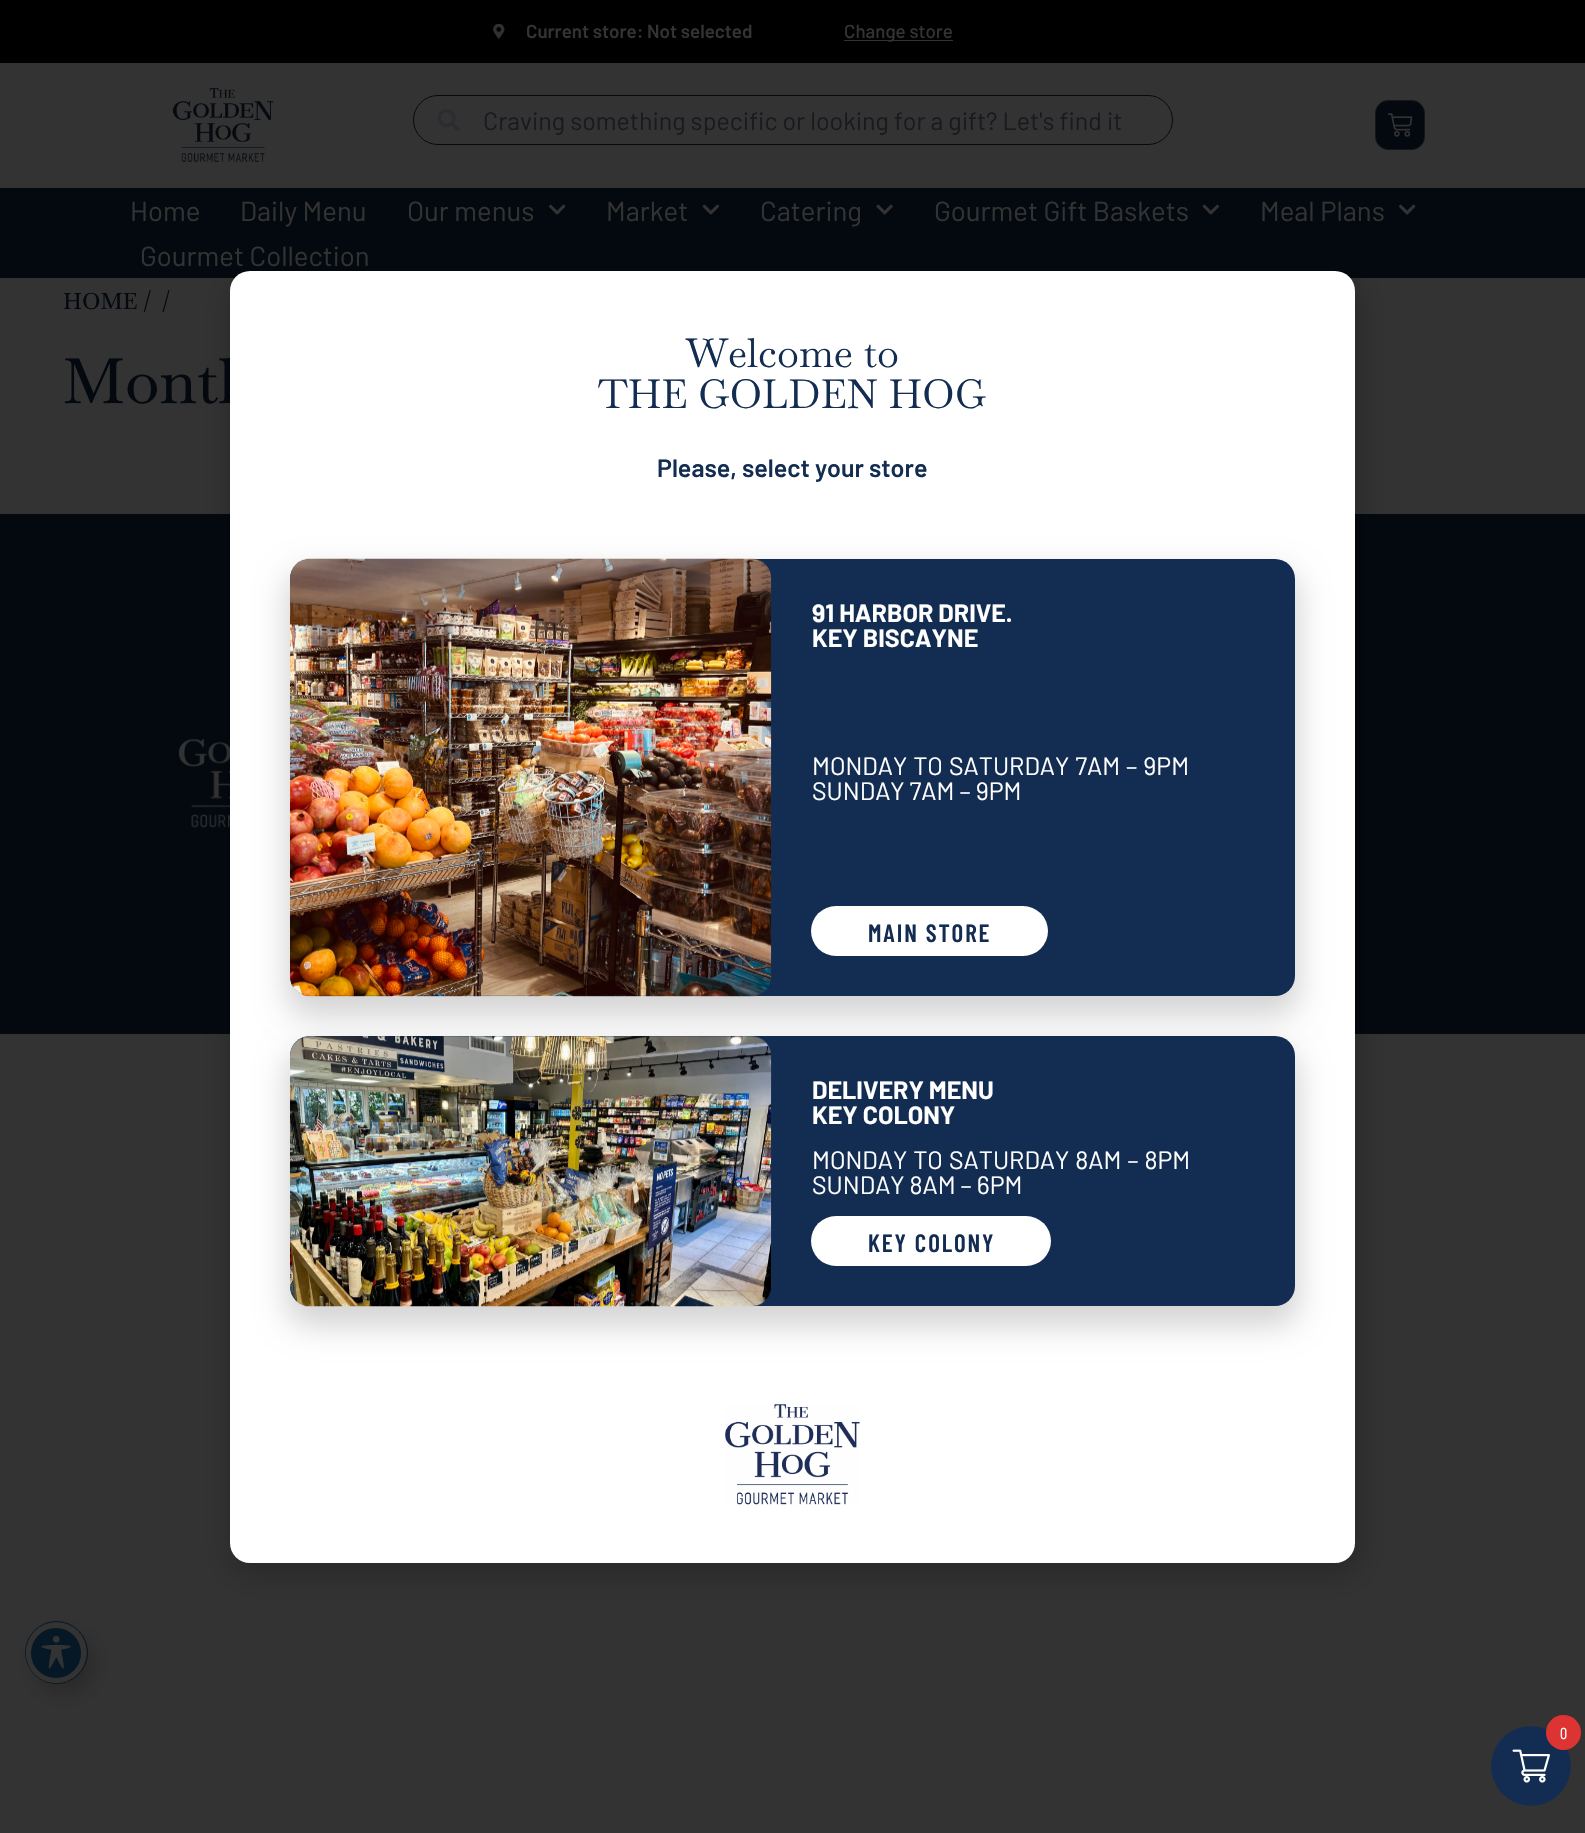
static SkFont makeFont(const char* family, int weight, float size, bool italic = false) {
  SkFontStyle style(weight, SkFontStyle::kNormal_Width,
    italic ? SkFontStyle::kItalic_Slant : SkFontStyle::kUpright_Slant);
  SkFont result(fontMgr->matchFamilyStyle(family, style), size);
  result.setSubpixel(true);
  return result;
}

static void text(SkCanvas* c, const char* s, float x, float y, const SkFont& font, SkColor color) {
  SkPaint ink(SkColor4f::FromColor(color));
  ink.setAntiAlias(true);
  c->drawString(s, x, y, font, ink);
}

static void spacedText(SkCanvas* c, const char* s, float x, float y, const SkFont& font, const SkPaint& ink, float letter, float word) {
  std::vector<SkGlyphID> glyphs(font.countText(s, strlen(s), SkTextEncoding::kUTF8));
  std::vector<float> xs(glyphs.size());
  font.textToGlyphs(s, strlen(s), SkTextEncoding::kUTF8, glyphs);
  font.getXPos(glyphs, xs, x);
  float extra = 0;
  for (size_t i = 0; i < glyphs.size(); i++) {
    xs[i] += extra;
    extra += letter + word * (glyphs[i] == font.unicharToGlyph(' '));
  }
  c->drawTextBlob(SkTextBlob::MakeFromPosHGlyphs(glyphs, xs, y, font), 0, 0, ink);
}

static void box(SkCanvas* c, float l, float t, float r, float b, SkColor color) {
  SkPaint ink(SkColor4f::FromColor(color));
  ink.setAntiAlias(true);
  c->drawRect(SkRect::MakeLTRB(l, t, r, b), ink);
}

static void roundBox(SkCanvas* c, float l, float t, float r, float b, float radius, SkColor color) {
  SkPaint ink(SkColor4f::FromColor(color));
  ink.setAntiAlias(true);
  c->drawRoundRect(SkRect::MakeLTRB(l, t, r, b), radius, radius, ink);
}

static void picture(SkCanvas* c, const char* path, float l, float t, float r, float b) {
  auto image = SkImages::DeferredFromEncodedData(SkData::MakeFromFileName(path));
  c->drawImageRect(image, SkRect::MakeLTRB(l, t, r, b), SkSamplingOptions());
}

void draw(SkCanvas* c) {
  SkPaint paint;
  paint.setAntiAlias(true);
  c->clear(0xff333333);
  box(c, 0, 0, 1585, 63, 0xff000000);
  picture(c, "img_01.png", 493, 24, 505, 39);
  SkFont face1 = makeFont("Barlow", 600, 18.75f);
  text(c, "Current store: Not selected", 526, 38, face1, 0xff333333);
  box(c, 844, 40, 953, 41, 0xff333333);
  SkFont face2 = makeFont("Barlow", 500, 18.75f);
  text(c, "Change store", 844, 38, face2, 0xff333333);
  picture(c, "img_02.png", 172, 88, 274, 162);
  paint.setStyle(SkPaint::kStroke_Style);
  paint.setStrokeWidth(1);
  paint.setColor(0xff040910);
  c->drawRoundRect(SkRect::MakeLTRB(413.5f, 95.5f, 1172.5f, 144.5f), 24.5f, 24.5f, paint);
  picture(c, "img_03.png", 437, 109, 460, 132);
  SkFont face3 = makeFont("Barlow", 400, 25);
  text(c, "Craving something specific or looking for a gift? Let's find it", 483, 130, face3, 0xff19191f);
  paint.setStyle(SkPaint::kFill_Style);
  c->drawRoundRect(SkRect::MakeLTRB(1375.5f, 100.5f, 1424.5f, 149.5f), 12.5f, 12.5f, paint);
  paint.setStyle(SkPaint::kStroke_Style);
  paint.setColor(0xff151719);
  c->drawRoundRect(SkRect::MakeLTRB(1375.5f, 100.5f, 1424.5f, 149.5f), 12.5f, 12.5f, paint);
  picture(c, "img_04.png", 1388, 113, 1413, 137);
  box(c, 0, 188, 1585, 278, 0xff040910);
  SkFont face4 = makeFont("Barlow", 400, 27.5f);
  text(c, "Home", 130, 221, face4, 0xff333333);
  text(c, "Daily Menu", 240, 221, face4, 0xff333333);
  text(c, "Our menus", 407, 221, face4, 0xff333333);
  picture(c, "img_05.png", 549, 204, 566, 215);
  text(c, "Market", 606, 221, face4, 0xff333333);
  picture(c, "img_06.png", 702, 204, 719, 215);
  text(c, "Catering", 760, 221, face4, 0xff333333);
  picture(c, "img_07.png", 876, 204, 893, 215);
  text(c, "Gourmet Gift Baskets", 934, 221, face4, 0xff333333);
  picture(c, "img_06.png", 1202, 204, 1219, 215);
  text(c, "Meal Plans", 1260, 221, face4, 0xff333333);
  picture(c, "img_05.png", 1399, 204, 1416, 215);
  text(c, "Gourmet Collection", 140, 266, face4, 0xff333333);
  SkFont face5 = makeFont("Baskervville", 500, 22.5f);
  text(c, "HOME /", 63, 309, face5, 0xff040910);
  text(c, "/", 162, 309, face5, 0xff040910);
  SkFont face6 = makeFont("Baskervville", 500, 62.5f);
  text(c, "Month", 63, 403, face6, 0xff040910);
  box(c, 0, 514, 1585, 1034, 0xff040910);
  picture(c, "img_11.png", 178, 738, 230, 828);
  paint.setStyle(SkPaint::kFill_Style);
  paint.setColor(0x33000000);
  paint.setMaskFilter(SkMaskFilter::MakeBlur(kNormal_SkBlurStyle, 14.5f));
  c->drawRoundRect(SkRect::MakeLTRB(229, 278, 1361, 1576), 24, 24, paint);
  paint.setMaskFilter(nullptr);
  roundBox(c, 230, 271, 1355, 1563, 20, 0xffffffff);
  SkFont face7 = makeFont("Baskervville", 400, 40);
  text(c, "Welcome to", 686, 367, face7, 0xff132d52);
  text(c, "THE GOLDEN HOG", 598, 408, face7, 0xff132d52);
  SkFont face8 = makeFont("Barlow", 600, 25);
  text(c, "Please, select your store", 657, 477, face8, 0xff132d52);
  paint.setColor(0x2b000000);
  paint.setMaskFilter(SkMaskFilter::MakeBlur(kNormal_SkBlurStyle, 15));
  c->drawRoundRect(SkRect::MakeLTRB(286, 571, 1299, 1016), 24, 24, paint);
  paint.setMaskFilter(nullptr);
  roundBox(c, 290, 559, 1295, 996, 20, 0xff132d52);
  picture(c, "img_08.png", 290, 558, 772, 997);
  SkFont face9 = makeFont("Barlow", 700, 25);
  text(c, "91 HARBOR DRIVE.", 812, 622, face9, 0xffffffff);
  text(c, "KEY BISCAYNE", 812, 647, face9, 0xffffffff);
  paint.setColor(0xffffffff);
  spacedText(c, "MONDAY TO SATURDAY 7AM – 9PM", 812, 775, face3, paint, 0, 1);
  text(c, "SUNDAY 7AM – 9PM", 812, 800, face3, 0xffffffff);
  roundBox(c, 811, 906, 1048, 956, 25, 0xffffffff);
  SkFont face10 = makeFont("Barlow Condensed", 600, 25);
  paint.setColor(0xff132d52);
  spacedText(c, "MAIN STORE", 868, 942, face10, paint, 1.9f, 0);
  paint.setColor(0x2b000000);
  paint.setMaskFilter(SkMaskFilter::MakeBlur(kNormal_SkBlurStyle, 15));
  c->drawRoundRect(SkRect::MakeLTRB(286, 1049, 1299, 1326), 24, 24, paint);
  paint.setMaskFilter(nullptr);
  roundBox(c, 290, 1036, 1295, 1306, 20, 0xff132d52);
  picture(c, "img_09.png", 290, 1036, 772, 1307);
  text(c, "DELIVERY MENU", 812, 1099, face9, 0xffffffff);
  text(c, "KEY COLONY", 812, 1124, face9, 0xffffffff);
  paint.setColor(0xffffffff);
  spacedText(c, "MONDAY TO SATURDAY 8AM – 8PM", 812, 1169, face3, paint, 0, 1);
  text(c, "SUNDAY 8AM – 6PM", 812, 1194, face3, 0xffffffff);
  roundBox(c, 811, 1216, 1051, 1266, 25, 0xffffffff);
  paint.setColor(0xff132d52);
  spacedText(c, "KEY COLONY", 868, 1252, face10, paint, 1.9f, 0);
  picture(c, "img_10.png", 725, 1404, 860, 1505);
  paint.setStyle(SkPaint::kStroke_Style);
  paint.setColor(0xff061825);
  c->drawCircle(56.5f, 1652.5f, 31, paint);
  paint.setStyle(SkPaint::kFill_Style);
  paint.setColor(0x33000000);
  paint.setMaskFilter(SkMaskFilter::MakeBlur(kNormal_SkBlurStyle, 10));
  c->drawRoundRect(SkRect::MakeLTRB(34, 1633, 94, 1693), 30, 30, paint);
  paint.setMaskFilter(nullptr);
  paint.setColor(0xff061825);
  c->drawCircle(56, 1653, 27.5f, paint);
  paint.setStyle(SkPaint::kStroke_Style);
  paint.setStrokeWidth(5);
  paint.setColor(0xff333333);
  c->drawCircle(56, 1653, 27.5f, paint);
  picture(c, "img_12.png", 41, 1635, 71, 1669);
  paint.setStyle(SkPaint::kFill_Style);
  paint.setColor(0xff132d52);
  c->drawCircle(1531, 1766, 40, paint);
  picture(c, "img_13.png", 1512, 1749, 1550, 1783);
  paint.setColor(0xffdd3333);
  c->drawCircle(1563.5f, 1732.5f, 17.5f, paint);
  SkFont face11 = makeFont("Barlow Condensed", 400, 16);
  text(c, "0", 1560, 1739, face11, 0xffffffff);
}
